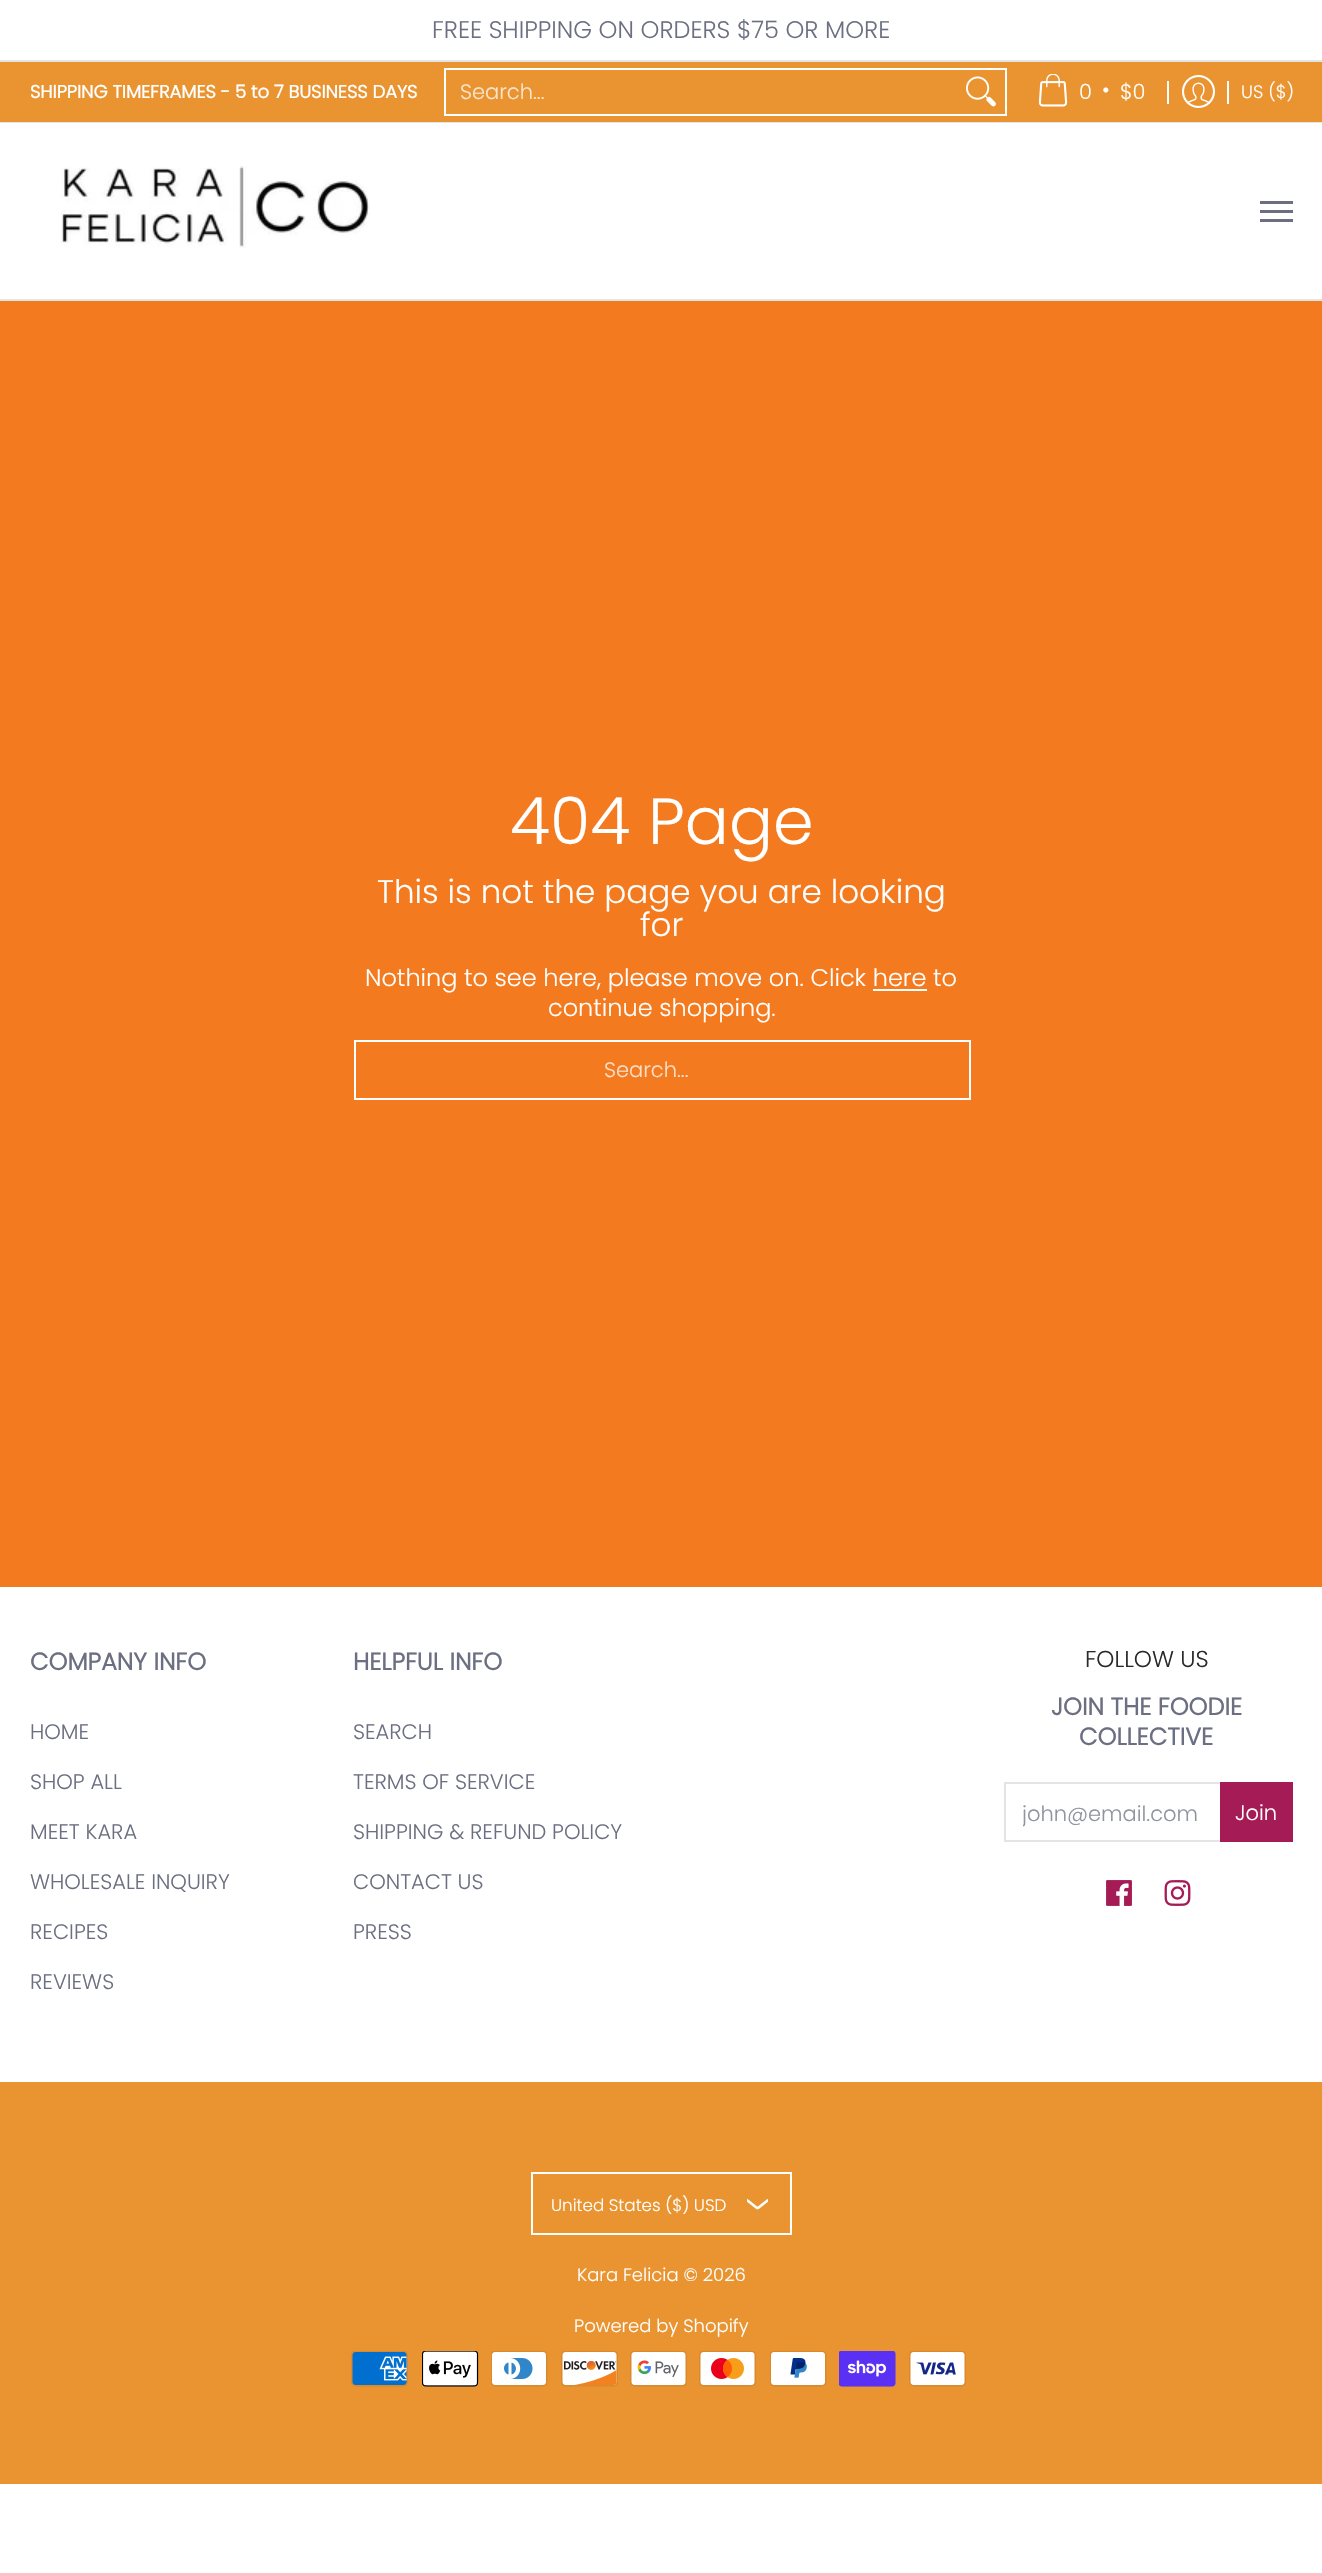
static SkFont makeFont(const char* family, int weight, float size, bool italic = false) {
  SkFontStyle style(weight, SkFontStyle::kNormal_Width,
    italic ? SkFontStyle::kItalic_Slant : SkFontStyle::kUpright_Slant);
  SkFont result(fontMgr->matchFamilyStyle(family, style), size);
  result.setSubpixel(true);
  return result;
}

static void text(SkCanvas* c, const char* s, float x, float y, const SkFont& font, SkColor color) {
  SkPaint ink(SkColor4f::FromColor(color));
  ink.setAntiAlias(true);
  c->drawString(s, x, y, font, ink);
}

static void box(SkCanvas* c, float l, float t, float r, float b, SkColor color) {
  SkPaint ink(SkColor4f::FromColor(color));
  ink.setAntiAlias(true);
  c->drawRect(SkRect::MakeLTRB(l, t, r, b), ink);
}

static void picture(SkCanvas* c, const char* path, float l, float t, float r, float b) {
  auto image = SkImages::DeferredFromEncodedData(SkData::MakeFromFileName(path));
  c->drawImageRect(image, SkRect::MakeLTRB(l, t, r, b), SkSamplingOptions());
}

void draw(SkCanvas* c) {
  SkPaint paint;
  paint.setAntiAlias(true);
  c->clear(0xffffffff);
  box(c, 0, 60, 1322, 62, 0xffe4e4e4);
  SkFont face1 = makeFont("Poppins", 300, 24);
  text(c, "FREE SHIPPING ON ORDERS $75 OR MORE", 432, 38, face1, 0xff6b6f81);
  box(c, 0, 62, 1322, 122, 0xffe99431);
  box(c, 0, 122, 1322, 123, 0xffe4e4e4);
  SkFont face2 = makeFont("Poppins", 700, 18);
  text(c, "SHIPPING TIMEFRAMES - 5 to 7 BUSINESS DAYS", 30, 98, face2, 0xffffffff);
  paint.setStyle(SkPaint::kStroke_Style);
  paint.setStrokeWidth(2);
  paint.setColor(0xffffffff);
  c->drawRect(SkRect::MakeLTRB(445, 69, 1006, 115), paint);
  SkFont face3 = makeFont("Poppins", 300, 21);
  text(c, "Search...", 460, 99, face3, 0xfffae4cc);
  picture(c, "img_01.png", 966, 76, 996, 107);
  picture(c, "img_02.png", 1038, 74, 1068, 107);
  text(c, "0", 1079, 99, face3, 0xffffffff);
  text(c, "•", 1102, 97, face3, 0xffffffff);
  text(c, "$0", 1120, 99, face3, 0xffffffff);
  box(c, 1167, 81, 1169, 104, 0xffffffff);
  picture(c, "img_03.png", 1182, 75, 1215, 108);
  box(c, 1227, 81, 1229, 104, 0xffffffff);
  SkFont face4 = makeFont("Poppins", 300, 18);
  text(c, "US ($)", 1241, 98, face4, 0xffffffff);
  box(c, 0, 299, 1322, 301, 0xffe4e4e4);
  picture(c, "img_04.png", 61, 166, 370, 248);
  box(c, 1260, 201, 1293, 204, 0xff6b6f81);
  box(c, 1260, 219, 1293, 222, 0xff6b6f81);
  box(c, 1260, 210, 1293, 213, 0xff6b6f81);
  box(c, 0, 301, 1322, 1587, 0xfff37a1f);
  SkFont face5 = makeFont("Poppins", 300, 65.25f);
  text(c, "404 Page", 510, 844, face5, 0xffffffff);
  SkFont face6 = makeFont("Poppins", 300, 32.6f);
  text(c, "This is not the page you are looking", 377, 903, face6, 0xffffffff);
  text(c, "for", 640, 936, face6, 0xffffffff);
  text(c, "Nothing to see here, please move on. Click here to", 365, 986, face1, 0xffffffff);
  box(c, 873, 989, 927, 991, 0xffffffff);
  text(c, "continue shopping.", 548, 1016, face1, 0xffffffff);
  c->drawRect(SkRect::MakeLTRB(355, 1041, 970, 1099), paint);
  text(c, "Search...", 604, 1077, face3, 0xfffcdec7);
  SkFont face7 = makeFont("Poppins", 700, 24);
  text(c, "COMPANY INFO", 30, 1670, face7, 0xff6b6f81);
  text(c, "HOME", 30, 1739, face3, 0xff6b6f81);
  text(c, "SHOP ALL", 30, 1789, face3, 0xff6b6f81);
  text(c, "MEET KARA", 30, 1839, face3, 0xff6b6f81);
  text(c, "WHOLESALE INQUIRY", 30, 1889, face3, 0xff6b6f81);
  text(c, "RECIPES", 30, 1939, face3, 0xff6b6f81);
  text(c, "REVIEWS", 30, 1989, face3, 0xff6b6f81);
  text(c, "HELPFUL INFO", 353, 1670, face7, 0xff6b6f81);
  text(c, "SEARCH", 353, 1739, face3, 0xff6b6f81);
  text(c, "TERMS OF SERVICE", 353, 1789, face3, 0xff6b6f81);
  text(c, "SHIPPING & REFUND POLICY", 353, 1839, face3, 0xff6b6f81);
  text(c, "CONTACT US", 353, 1889, face3, 0xff6b6f81);
  text(c, "PRESS", 353, 1939, face3, 0xff6b6f81);
  SkFont face8 = makeFont("Poppins", 300, 23);
  text(c, "FOLLOW US", 1085, 1667, face8, 0xff292929);
  text(c, "JOIN THE FOODIE", 1051, 1715, face7, 0xff6b6f81);
  text(c, "COLLECTIVE", 1079, 1745, face7, 0xff6b6f81);
  paint.setColor(0xffe4e4e4);
  c->drawRect(SkRect::MakeLTRB(1005, 1783, 1222, 1841), paint);
  c->save();
  c->clipRect(SkRect::MakeLTRB(1023, 1799, 1203, 1830));
  text(c, "john@email.com", 1022, 1821, face3, 0xff9093a1);
  c->restore();
  box(c, 1220, 1782, 1293, 1842, 0xffa41b56);
  text(c, "Join", 1235, 1820, face3, 0xffffffff);
  picture(c, "img_05.png", 1106, 1880, 1132, 1906);
  picture(c, "img_06.png", 1164, 1880, 1191, 1906);
  box(c, 0, 2082, 1322, 2484, 0xffe99431);
  paint.setColor(0xffffffff);
  c->drawRect(SkRect::MakeLTRB(532, 2173, 791, 2234), paint);
  SkFont face9 = makeFont("Poppins", 300, 16.75f);
  text(c, "United States ($) USD", 551, 2211, face9, 0xffffffff);
  c->save();
  c->clipRect(SkRect::MakeLTRB(747, 2193, 768, 2214));
  paint.setStrokeWidth(2.6f);
  paint.setStrokeCap(SkPaint::kRound_Cap);
  paint.setStrokeJoin(SkPaint::kRound_Join);
  c->drawPath(SkPathBuilder().moveTo(747.5f, 2200.5f).lineTo(757, 2208).lineTo(758, 2208).lineTo(767.5f, 2200.5f).detach(), paint);
  c->restore();
  text(c, "Kara Felicia © 2026", 577, 2281, face4, 0xffffffff);
  text(c, "Powered by Shopify", 574, 2332, face4, 0xffffffff);
  picture(c, "img_07.png", 351, 2351, 408, 2387);
  picture(c, "img_08.png", 422, 2351, 479, 2387);
  picture(c, "img_09.png", 491, 2351, 548, 2387);
  picture(c, "img_10.png", 561, 2351, 618, 2387);
  picture(c, "img_11.png", 630, 2351, 687, 2387);
  picture(c, "img_12.png", 699, 2351, 756, 2387);
  picture(c, "img_13.png", 770, 2351, 827, 2387);
  picture(c, "img_14.png", 839, 2351, 896, 2387);
  picture(c, "img_15.png", 909, 2351, 966, 2387);
}
